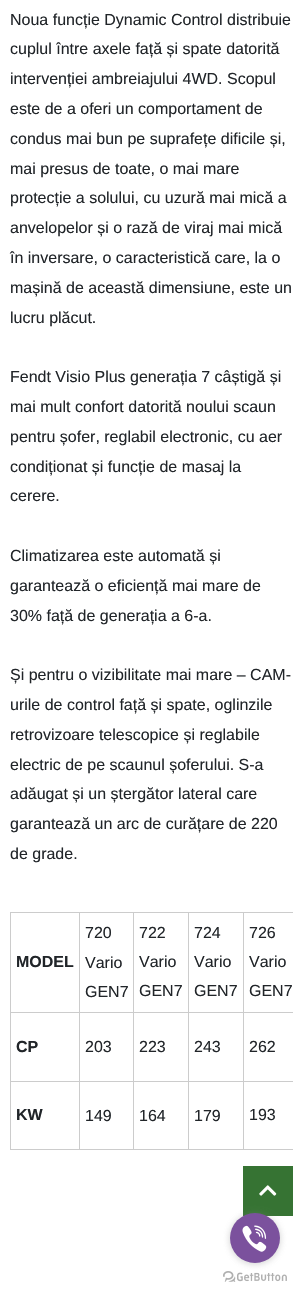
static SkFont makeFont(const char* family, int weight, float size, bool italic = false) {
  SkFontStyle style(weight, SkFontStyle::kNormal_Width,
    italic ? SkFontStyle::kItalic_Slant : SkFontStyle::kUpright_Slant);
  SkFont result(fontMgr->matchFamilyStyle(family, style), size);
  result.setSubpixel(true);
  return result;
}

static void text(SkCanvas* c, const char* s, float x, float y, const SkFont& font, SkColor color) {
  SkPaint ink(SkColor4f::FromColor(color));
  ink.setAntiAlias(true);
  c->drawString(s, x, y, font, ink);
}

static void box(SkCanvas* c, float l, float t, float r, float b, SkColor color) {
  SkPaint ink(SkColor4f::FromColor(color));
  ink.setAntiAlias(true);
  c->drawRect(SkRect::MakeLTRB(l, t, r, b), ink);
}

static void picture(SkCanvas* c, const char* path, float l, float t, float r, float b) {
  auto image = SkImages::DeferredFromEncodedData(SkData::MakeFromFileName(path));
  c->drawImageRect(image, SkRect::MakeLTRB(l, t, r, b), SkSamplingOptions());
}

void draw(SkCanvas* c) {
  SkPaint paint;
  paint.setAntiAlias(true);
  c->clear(0xffffffff);
  SkFont face1 = makeFont("Liberation Sans", 400, 16);
  text(c, "Noua funcție Dynamic Control distribuie", 10, 25, face1, 0xff212529);
  text(c, "cuplul între axele față și spate datorită", 10, 54, face1, 0xff212529);
  text(c, "intervenției ambreiajului 4WD. Scopul", 10, 84, face1, 0xff212529);
  text(c, "este de a oferi un comportament de", 10, 114, face1, 0xff212529);
  text(c, "condus mai bun pe suprafețe dificile și,", 10, 144, face1, 0xff212529);
  text(c, "mai presus de toate, o mai mare", 10, 174, face1, 0xff212529);
  text(c, "protecție a solului, cu uzură mai mică a", 10, 203, face1, 0xff212529);
  text(c, "anvelopelor și o rază de viraj mai mică", 10, 233, face1, 0xff212529);
  text(c, "în inversare, o caracteristică care, la o", 10, 263, face1, 0xff212529);
  text(c, "mașină de această dimensiune, este un", 10, 293, face1, 0xff212529);
  text(c, "lucru plăcut.", 10, 323, face1, 0xff212529);
  text(c, "Fendt Visio Plus generația 7 câștigă și", 10, 382, face1, 0xff212529);
  text(c, "mai mult confort datorită noului scaun", 10, 412, face1, 0xff212529);
  text(c, "pentru șofer, reglabil electronic, cu aer", 10, 442, face1, 0xff212529);
  text(c, "condiționat și funcție de masaj la", 10, 472, face1, 0xff212529);
  text(c, "cerere.", 10, 501, face1, 0xff212529);
  text(c, "Climatizarea este automată și", 10, 561, face1, 0xff212529);
  text(c, "garantează o eficiență mai mare de", 10, 591, face1, 0xff212529);
  text(c, "30% față de generația a 6-a.", 10, 621, face1, 0xff212529);
  text(c, "Și pentru o vizibilitate mai mare – CAM-", 10, 680, face1, 0xff212529);
  text(c, "urile de control față și spate, oglinzile", 10, 710, face1, 0xff212529);
  text(c, "retrovizoare telescopice și reglabile", 10, 740, face1, 0xff212529);
  text(c, "electric de pe scaunul șoferului. S-a", 10, 770, face1, 0xff212529);
  text(c, "adăugat și un ștergător lateral care", 10, 799, face1, 0xff212529);
  text(c, "garantează un arc de curățare de 220", 10, 829, face1, 0xff212529);
  text(c, "de grade.", 10, 859, face1, 0xff212529);
  box(c, 243, 912, 293, 913, 0xffcccccc);
  box(c, 243, 1012, 293, 1013, 0xffcccccc);
  box(c, 243, 1081, 293, 1082, 0xffcccccc);
  box(c, 243, 1149, 293, 1150, 0xffcccccc);
  box(c, 243, 1081, 244, 1150, 0xffcccccc);
  box(c, 188, 1081, 244, 1082, 0xffcccccc);
  box(c, 243, 1012, 244, 1082, 0xffcccccc);
  box(c, 188, 1012, 244, 1013, 0xffcccccc);
  box(c, 243, 912, 244, 1013, 0xffcccccc);
  box(c, 188, 912, 244, 913, 0xffcccccc);
  box(c, 188, 1149, 244, 1150, 0xffcccccc);
  box(c, 188, 1081, 189, 1150, 0xffcccccc);
  box(c, 133, 1081, 189, 1082, 0xffcccccc);
  box(c, 188, 1012, 189, 1082, 0xffcccccc);
  box(c, 133, 1012, 189, 1013, 0xffcccccc);
  box(c, 188, 912, 189, 1013, 0xffcccccc);
  box(c, 133, 912, 189, 913, 0xffcccccc);
  box(c, 133, 1149, 189, 1150, 0xffcccccc);
  box(c, 133, 1081, 134, 1150, 0xffcccccc);
  box(c, 79, 1081, 134, 1082, 0xffcccccc);
  box(c, 133, 1012, 134, 1082, 0xffcccccc);
  box(c, 79, 1012, 134, 1013, 0xffcccccc);
  box(c, 133, 912, 134, 1013, 0xffcccccc);
  box(c, 79, 912, 134, 913, 0xffcccccc);
  box(c, 79, 1149, 134, 1150, 0xffcccccc);
  box(c, 79, 1081, 80, 1150, 0xffcccccc);
  box(c, 10, 1081, 80, 1082, 0xffcccccc);
  box(c, 79, 1012, 80, 1082, 0xffcccccc);
  box(c, 10, 1012, 80, 1013, 0xffcccccc);
  box(c, 79, 912, 80, 1013, 0xffcccccc);
  box(c, 10, 912, 80, 913, 0xffcccccc);
  box(c, 10, 1149, 80, 1150, 0xffcccccc);
  box(c, 10, 1081, 11, 1150, 0xffcccccc);
  box(c, 10, 1012, 11, 1082, 0xffcccccc);
  box(c, 10, 912, 11, 1013, 0xffcccccc);
  SkFont face2 = makeFont("Liberation Sans", 700, 16);
  text(c, "MODEL", 16, 967, face2, 0xff212529);
  text(c, "720", 85, 938, face1, 0xff212529);
  text(c, "Vario", 85, 968, face1, 0xff212529);
  text(c, "GEN7", 85, 997, face1, 0xff212529);
  text(c, "722", 139, 938, face1, 0xff212529);
  text(c, "Vario", 139, 967, face1, 0xff212529);
  text(c, "GEN7", 139, 996, face1, 0xff212529);
  text(c, "724", 194, 938, face1, 0xff212529);
  text(c, "Vario", 194, 967, face1, 0xff212529);
  text(c, "GEN7", 194, 996, face1, 0xff212529);
  text(c, "726", 249, 938, face1, 0xff212529);
  text(c, "Vario", 249, 967, face1, 0xff212529);
  text(c, "GEN7", 249, 996, face1, 0xff212529);
  text(c, "CP", 16, 1052, face2, 0xff212529);
  text(c, "203", 85, 1052, face1, 0xff212529);
  text(c, "223", 139, 1052, face1, 0xff212529);
  text(c, "243", 194, 1052, face1, 0xff212529);
  text(c, "262", 249, 1052, face1, 0xff212529);
  text(c, "KW", 16, 1120, face2, 0xff212529);
  text(c, "149", 85, 1121, face1, 0xff212529);
  text(c, "164", 139, 1121, face1, 0xff212529);
  text(c, "179", 194, 1121, face1, 0xff212529);
  text(c, "193", 249, 1120, face1, 0xff212529);
  box(c, 243, 1166, 293, 1216, 0xff367333);
  picture(c, "img_01.png", 259, 1185, 277, 1196);
  picture(c, "img_03.png", 223, 1271, 287, 1282);
  paint.setColor(0x66888888);
  paint.setMaskFilter(SkMaskFilter::MakeBlur(kNormal_SkBlurStyle, 3.5f));
  c->drawRoundRect(SkRect::MakeLTRB(230, 1214, 280, 1264), 25, 25, paint);
  paint.setMaskFilter(nullptr);
  paint.setColor(0xff7b519d);
  c->drawCircle(255, 1238, 25, paint);
  picture(c, "img_02.png", 242, 1225, 267, 1252);
}
